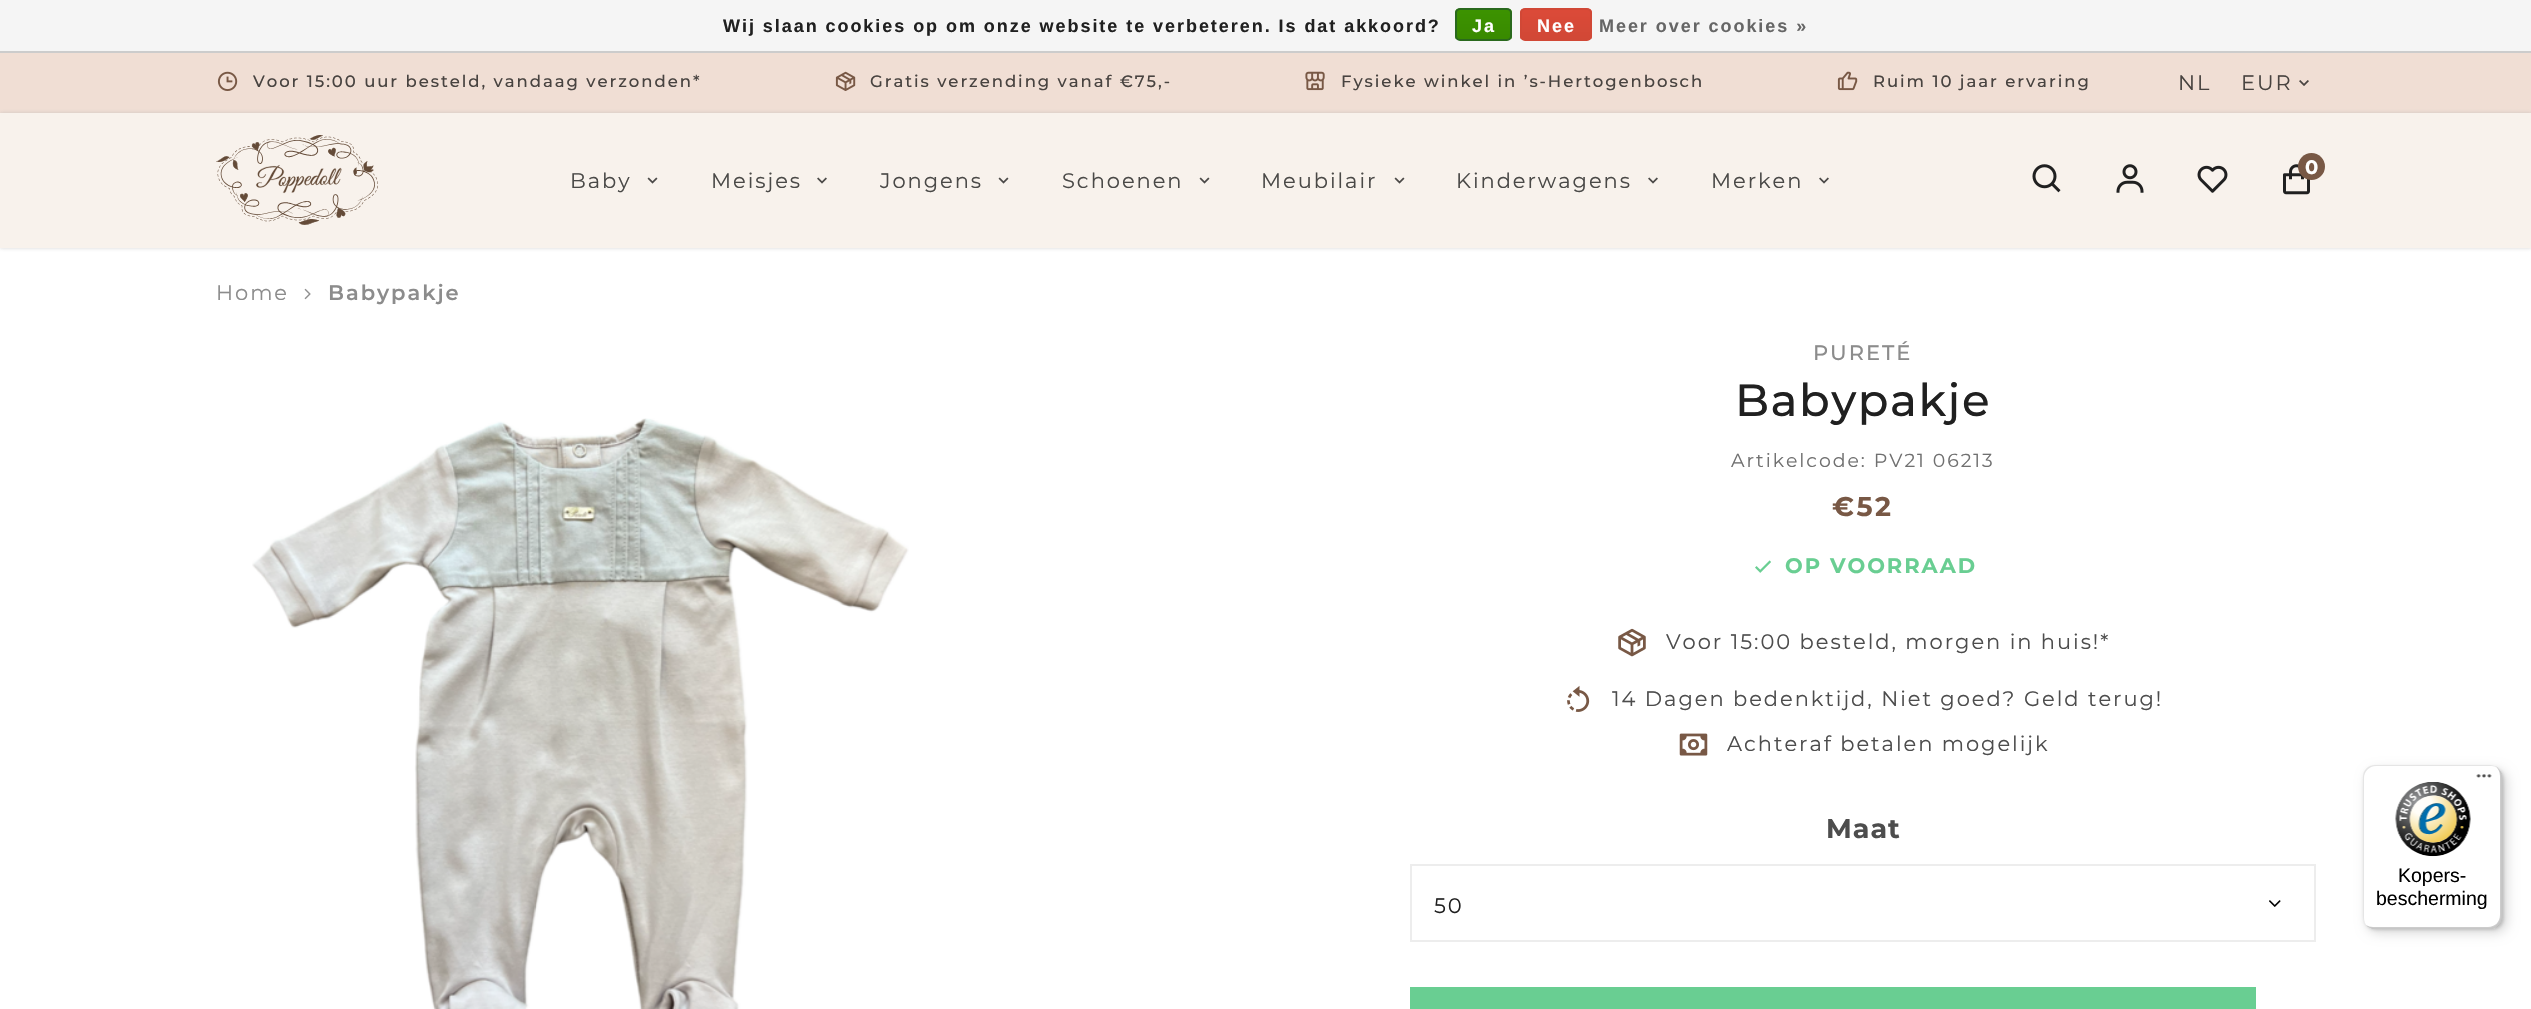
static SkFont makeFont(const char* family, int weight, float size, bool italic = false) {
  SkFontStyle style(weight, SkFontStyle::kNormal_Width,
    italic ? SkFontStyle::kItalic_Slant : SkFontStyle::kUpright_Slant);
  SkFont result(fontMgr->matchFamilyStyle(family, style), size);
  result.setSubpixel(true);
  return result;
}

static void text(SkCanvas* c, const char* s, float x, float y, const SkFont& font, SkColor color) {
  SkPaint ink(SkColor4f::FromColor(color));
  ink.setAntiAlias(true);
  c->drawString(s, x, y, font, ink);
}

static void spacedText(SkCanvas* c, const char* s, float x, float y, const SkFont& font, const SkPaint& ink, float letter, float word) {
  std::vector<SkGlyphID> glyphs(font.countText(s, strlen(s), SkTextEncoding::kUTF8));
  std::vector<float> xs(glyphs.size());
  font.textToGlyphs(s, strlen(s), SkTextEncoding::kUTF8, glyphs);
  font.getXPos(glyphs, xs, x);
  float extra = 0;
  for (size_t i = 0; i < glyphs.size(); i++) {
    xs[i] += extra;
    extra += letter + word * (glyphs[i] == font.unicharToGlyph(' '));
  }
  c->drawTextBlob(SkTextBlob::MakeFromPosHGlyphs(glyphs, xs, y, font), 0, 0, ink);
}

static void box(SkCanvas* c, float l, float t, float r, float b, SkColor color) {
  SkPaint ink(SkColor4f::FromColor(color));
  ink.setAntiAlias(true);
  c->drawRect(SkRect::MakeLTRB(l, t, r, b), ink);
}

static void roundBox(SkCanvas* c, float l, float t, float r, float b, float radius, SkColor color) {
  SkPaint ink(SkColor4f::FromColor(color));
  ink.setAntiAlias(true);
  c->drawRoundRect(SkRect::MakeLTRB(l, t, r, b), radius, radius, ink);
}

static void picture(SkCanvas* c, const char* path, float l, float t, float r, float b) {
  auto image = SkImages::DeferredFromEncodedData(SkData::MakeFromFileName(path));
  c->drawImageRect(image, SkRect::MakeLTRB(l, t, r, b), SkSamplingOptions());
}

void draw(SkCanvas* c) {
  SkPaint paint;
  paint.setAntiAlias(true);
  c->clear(0xffffffff);
  box(c, 0, 0, 2531, 51, 0xfff5f5f5);
  box(c, 0, 51, 2531, 53, 0xffcccccc);
  SkFont face1 = makeFont("Liberation Sans", 700, 18);
  paint.setColor(0xff202020);
  spacedText(c, "Wij slaan cookies op om onze website te verbeteren. Is dat akkoord?", 723, 32, face1, paint, 1.95f, 0);
  c->save();
  c->clipPath(SkPathBuilder().moveTo(1460, 8).lineTo(1507, 8).cubicTo(1510, 8, 1512, 10, 1512, 13).lineTo(1512, 36).cubicTo(1512, 39, 1510, 41, 1507, 41).lineTo(1460, 41).cubicTo(1457, 41, 1455, 39, 1455, 36).lineTo(1455, 13).cubicTo(1455, 10, 1457, 8, 1460, 8).close().detach(), true);
  {
    const SkColor colors[] = {0xff3c9300, 0xff398a00};
    const float stops[] = {0, 1};
    const SkPoint ends[] = {{1484, 9}, {1484, 39}};
    paint.setShader(SkGradientShader::MakeLinear(ends, colors, stops, 2, SkTileMode::kClamp));
    paint.setAlpha(255);
  }
  c->drawRect(SkRect::MakeLTRB(1455, 9, 1512, 39), paint);
  c->restore();
  paint.setStyle(SkPaint::kStroke_Style);
  paint.setStrokeWidth(2);
  paint.setShader(nullptr);
  paint.setColor(0xff29691d);
  c->drawRoundRect(SkRect::MakeLTRB(1456, 9, 1511, 40), 4, 4, paint);
  paint.setStyle(SkPaint::kFill_Style);
  paint.setColor(0xffffffff);
  spacedText(c, "Ja", 1472, 32, face1, paint, 1.95f, 0);
  c->save();
  c->clipPath(SkPathBuilder().moveTo(1525, 8).lineTo(1587, 8).cubicTo(1590, 8, 1592, 10, 1592, 13).lineTo(1592, 36).cubicTo(1592, 39, 1590, 41, 1587, 41).lineTo(1525, 41).cubicTo(1522, 41, 1520, 39, 1520, 36).lineTo(1520, 13).cubicTo(1520, 10, 1522, 8, 1525, 8).close().detach(), true);
  {
    const SkColor colors[] = {0xffdc4a38, 0xffd14836};
    const float stops[] = {0, 1};
    const SkPoint ends[] = {{1556, 9}, {1556, 39}};
    paint.setShader(SkGradientShader::MakeLinear(ends, colors, stops, 2, SkTileMode::kClamp));
    paint.setAlpha(255);
  }
  c->drawRect(SkRect::MakeLTRB(1520, 9, 1592, 39), paint);
  c->restore();
  paint.setStyle(SkPaint::kStroke_Style);
  paint.setShader(nullptr);
  paint.setColor(0xffd14836);
  c->drawRoundRect(SkRect::MakeLTRB(1521, 9, 1591, 40), 4, 4, paint);
  paint.setStyle(SkPaint::kFill_Style);
  paint.setColor(0xffffffff);
  spacedText(c, "Nee", 1537, 32, face1, paint, 1.95f, 0);
  paint.setColor(0xff666666);
  spacedText(c, "Meer over cookies »", 1599, 32, face1, paint, 1.95f, 0);
  box(c, 0, 53, 2531, 113, 0xfff0ded4);
  picture(c, "img_01.png", 217, 71, 238, 91);
  SkFont face2 = makeFont("Montserrat", 500, 16.5f);
  paint.setColor(0xff484340);
  spacedText(c, "Voor 15:00 uur besteld, vandaag verzonden*", 253, 87, face2, paint, 1.95f, 0);
  picture(c, "img_02.png", 835, 71, 856, 91);
  spacedText(c, "Gratis verzending vanaf €75,-", 870, 87, face2, paint, 1.95f, 0);
  picture(c, "img_03.png", 1305, 71, 1325, 91);
  spacedText(c, "Fysieke winkel in ’s-Hertogenbosch", 1341, 87, face2, paint, 1.95f, 0);
  picture(c, "img_04.png", 1837, 71, 1858, 91);
  spacedText(c, "Ruim 10 jaar ervaring", 1873, 87, face2, paint, 1.95f, 0);
  SkFont face3 = makeFont("Montserrat", 400, 21);
  spacedText(c, "NL", 2178, 90, face3, paint, 1.95f, 0);
  spacedText(c, "EUR", 2241, 90, face3, paint, 1.95f, 0);
  picture(c, "img_05.png", 2299, 80, 2309, 86);
  paint.setColor(0x80ababab);
  paint.setMaskFilter(SkMaskFilter::MakeBlur(kNormal_SkBlurStyle, 2));
  c->drawRect(SkRect::MakeLTRB(0, 113, 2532, 248), paint);
  paint.setMaskFilter(nullptr);
  box(c, 0, 113, 2531, 248, 0xfff8f2ec);
  picture(c, "img_06.png", 216, 135, 378, 225);
  picture(c, "img_07.png", 2032, 164, 2061, 193);
  picture(c, "img_08.png", 2116, 164, 2144, 193);
  picture(c, "img_09.png", 2197, 165, 2228, 193);
  picture(c, "img_10.png", 2283, 164, 2310, 195);
  paint.setColor(0xff785845);
  c->drawCircle(2311.5f, 166.5f, 13.5f, paint);
  SkFont face4 = makeFont("Montserrat", 700, 19.5f);
  text(c, "0", 2305, 174, face4, 0xffffffff);
  paint.setColor(0xff4a4947);
  spacedText(c, "Baby", 570, 188, face3, paint, 1.95f, 0);
  picture(c, "img_11.png", 647, 177, 658, 184);
  spacedText(c, "Meisjes", 711, 188, face3, paint, 1.95f, 0);
  picture(c, "img_12.png", 817, 177, 827, 184);
  spacedText(c, "Jongens", 880, 188, face3, paint, 1.95f, 0);
  picture(c, "img_11.png", 998, 177, 1009, 184);
  spacedText(c, "Schoenen", 1062, 188, face3, paint, 1.95f, 0);
  picture(c, "img_11.png", 1199, 177, 1210, 184);
  spacedText(c, "Meubilair", 1261, 188, face3, paint, 1.95f, 0);
  picture(c, "img_11.png", 1394, 177, 1405, 184);
  spacedText(c, "Kinderwagens", 1456, 188, face3, paint, 1.95f, 0);
  picture(c, "img_12.png", 1648, 177, 1658, 184);
  spacedText(c, "Merken", 1711, 188, face3, paint, 1.95f, 0);
  picture(c, "img_12.png", 1819, 177, 1829, 184);
  paint.setColor(0xff8c8c8c);
  spacedText(c, "Home", 216, 300, face3, paint, 1.95f, 0);
  picture(c, "img_13.png", 304, 288, 311, 300);
  SkFont face5 = makeFont("Montserrat", 600, 21);
  spacedText(c, "Babypakje", 328, 300, face5, paint, 1.95f, 0);
  picture(c, "img_14.png", 252, 418, 909, 1009);
  SkFont face6 = makeFont("Montserrat", 500, 21);
  spacedText(c, "PURETÉ", 1813, 360, face6, paint, 1.95f, 0);
  SkFont face7 = makeFont("Montserrat", 500, 45);
  paint.setColor(0xff202020);
  spacedText(c, "Babypakje", 1735, 416, face7, paint, 1.5f, 0);
  SkFont face8 = makeFont("Montserrat", 400, 18.9f);
  paint.setColor(0xff707070);
  spacedText(c, "Artikelcode: PV21 06213", 1731, 467, face8, paint, 1.95f, 0);
  SkFont face9 = makeFont("Montserrat", 700, 27);
  paint.setColor(0xff785845);
  spacedText(c, "€52", 1832, 516, face9, paint, 2.5f, 0);
  picture(c, "img_15.png", 1755, 560, 1771, 573);
  SkFont face10 = makeFont("Montserrat", 700, 21);
  paint.setColor(0xff69ce92);
  spacedText(c, "OP VOORRAAD", 1785, 573, face10, paint, 1.95f, 0);
  picture(c, "img_16.png", 1618, 628, 1646, 657);
  paint.setColor(0xff4d4d4d);
  spacedText(c, "Voor 15:00 besteld, morgen in huis!*", 1666, 649, face3, paint, 1.95f, 0);
  picture(c, "img_17.png", 1567, 685, 1590, 712);
  spacedText(c, "14 Dagen bedenktijd, Niet goed? Geld terug!", 1612, 706, face3, paint, 1.95f, 0);
  picture(c, "img_18.png", 1679, 733, 1708, 756);
  spacedText(c, "Achteraf betalen mogelijk", 1727, 751, face3, paint, 1.95f, 0);
  spacedText(c, "Maat", 1826, 838, face9, paint, 1, 0);
  paint.setStyle(SkPaint::kStroke_Style);
  paint.setColor(0xffededed);
  c->drawRect(SkRect::MakeLTRB(1411, 865, 2315, 941), paint);
  paint.setStyle(SkPaint::kFill_Style);
  paint.setColor(0xff202020);
  spacedText(c, "50", 1434, 913, face3, paint, 1.95f, 0);
  picture(c, "img_19.png", 2269, 900, 2281, 907);
  box(c, 1410, 987, 2256, 1009, 0xff69ce92);
  paint.setColor(0x26000000);
  paint.setMaskFilter(SkMaskFilter::MakeBlur(kNormal_SkBlurStyle, 6));
  c->drawRoundRect(SkRect::MakeLTRB(2367, 770, 2507, 933), 12, 12, paint);
  paint.setMaskFilter(nullptr);
  paint.setMaskFilter(SkMaskFilter::MakeBlur(kNormal_SkBlurStyle, 1.5f));
  c->drawRoundRect(SkRect::MakeLTRB(2364, 767, 2504, 930), 12, 12, paint);
  paint.setMaskFilter(nullptr);
  roundBox(c, 2363, 765, 2502, 929, 12, 0xffffffff);
  paint.setColor(0xffe5e5e5);
  c->drawPath(SkPathBuilder().moveTo(2376, 766).lineTo(2492, 766).cubicTo(2494, 766, 2496, 767, 2497, 768).cubicTo(2495, 766, 2493, 765, 2490, 765).lineTo(2375, 765).cubicTo(2368, 765, 2363, 770, 2363, 777).lineTo(2363, 917).cubicTo(2363, 920, 2364, 923, 2366, 925).cubicTo(2365, 923, 2364, 921, 2364, 918).lineTo(2364, 778).cubicTo(2364, 772, 2369, 766, 2376, 766).close().detach(), paint);
  paint.setColor(0x33000000);
  c->drawPath(SkPathBuilder().moveTo(2366, 925).cubicTo(2368, 927, 2371, 929, 2375, 929).lineTo(2490, 929).cubicTo(2497, 929, 2502, 924, 2502, 917).lineTo(2502, 777).cubicTo(2502, 772, 2499, 768, 2495, 766).cubicTo(2498, 768, 2500, 772, 2500, 776).lineTo(2500, 915).cubicTo(2500, 922, 2495, 927, 2488, 927).lineTo(2373, 927).cubicTo(2370, 927, 2368, 926, 2366, 925).close().detach(), paint);
  paint.setColor(0x33323232);
  c->drawPath(SkPathBuilder().moveTo(2366, 925).cubicTo(2368, 927, 2371, 929, 2375, 929).lineTo(2490, 929).cubicTo(2497, 929, 2502, 924, 2502, 917).lineTo(2502, 777).cubicTo(2502, 774, 2501, 771, 2499, 769).cubicTo(2500, 771, 2501, 773, 2501, 776).lineTo(2501, 916).cubicTo(2501, 922, 2496, 928, 2489, 928).lineTo(2374, 928).cubicTo(2371, 928, 2368, 927, 2366, 925).close().detach(), paint);
  paint.setColor(0x4dffffff);
  c->drawPath(SkPathBuilder().moveTo(2366, 925).cubicTo(2368, 927, 2371, 929, 2375, 929).lineTo(2490, 929).cubicTo(2497, 929, 2502, 924, 2502, 917).lineTo(2502, 777).cubicTo(2502, 773, 2500, 770, 2498, 768).cubicTo(2500, 770, 2501, 773, 2501, 776).lineTo(2501, 916).cubicTo(2501, 922, 2496, 928, 2489, 928).lineTo(2374, 928).cubicTo(2371, 928, 2368, 927, 2366, 925).close().detach(), paint);
  picture(c, "img_20.png", 2476, 774, 2492, 778);
  picture(c, "img_21.png", 2395, 782, 2471, 857);
  SkFont face11 = makeFont("Liberation Sans", 400, 19.5f);
  text(c, "Kopers-", 2398, 882, face11, 0xff000000);
  text(c, "bescherming", 2376, 905, face11, 0xff000000);
}
